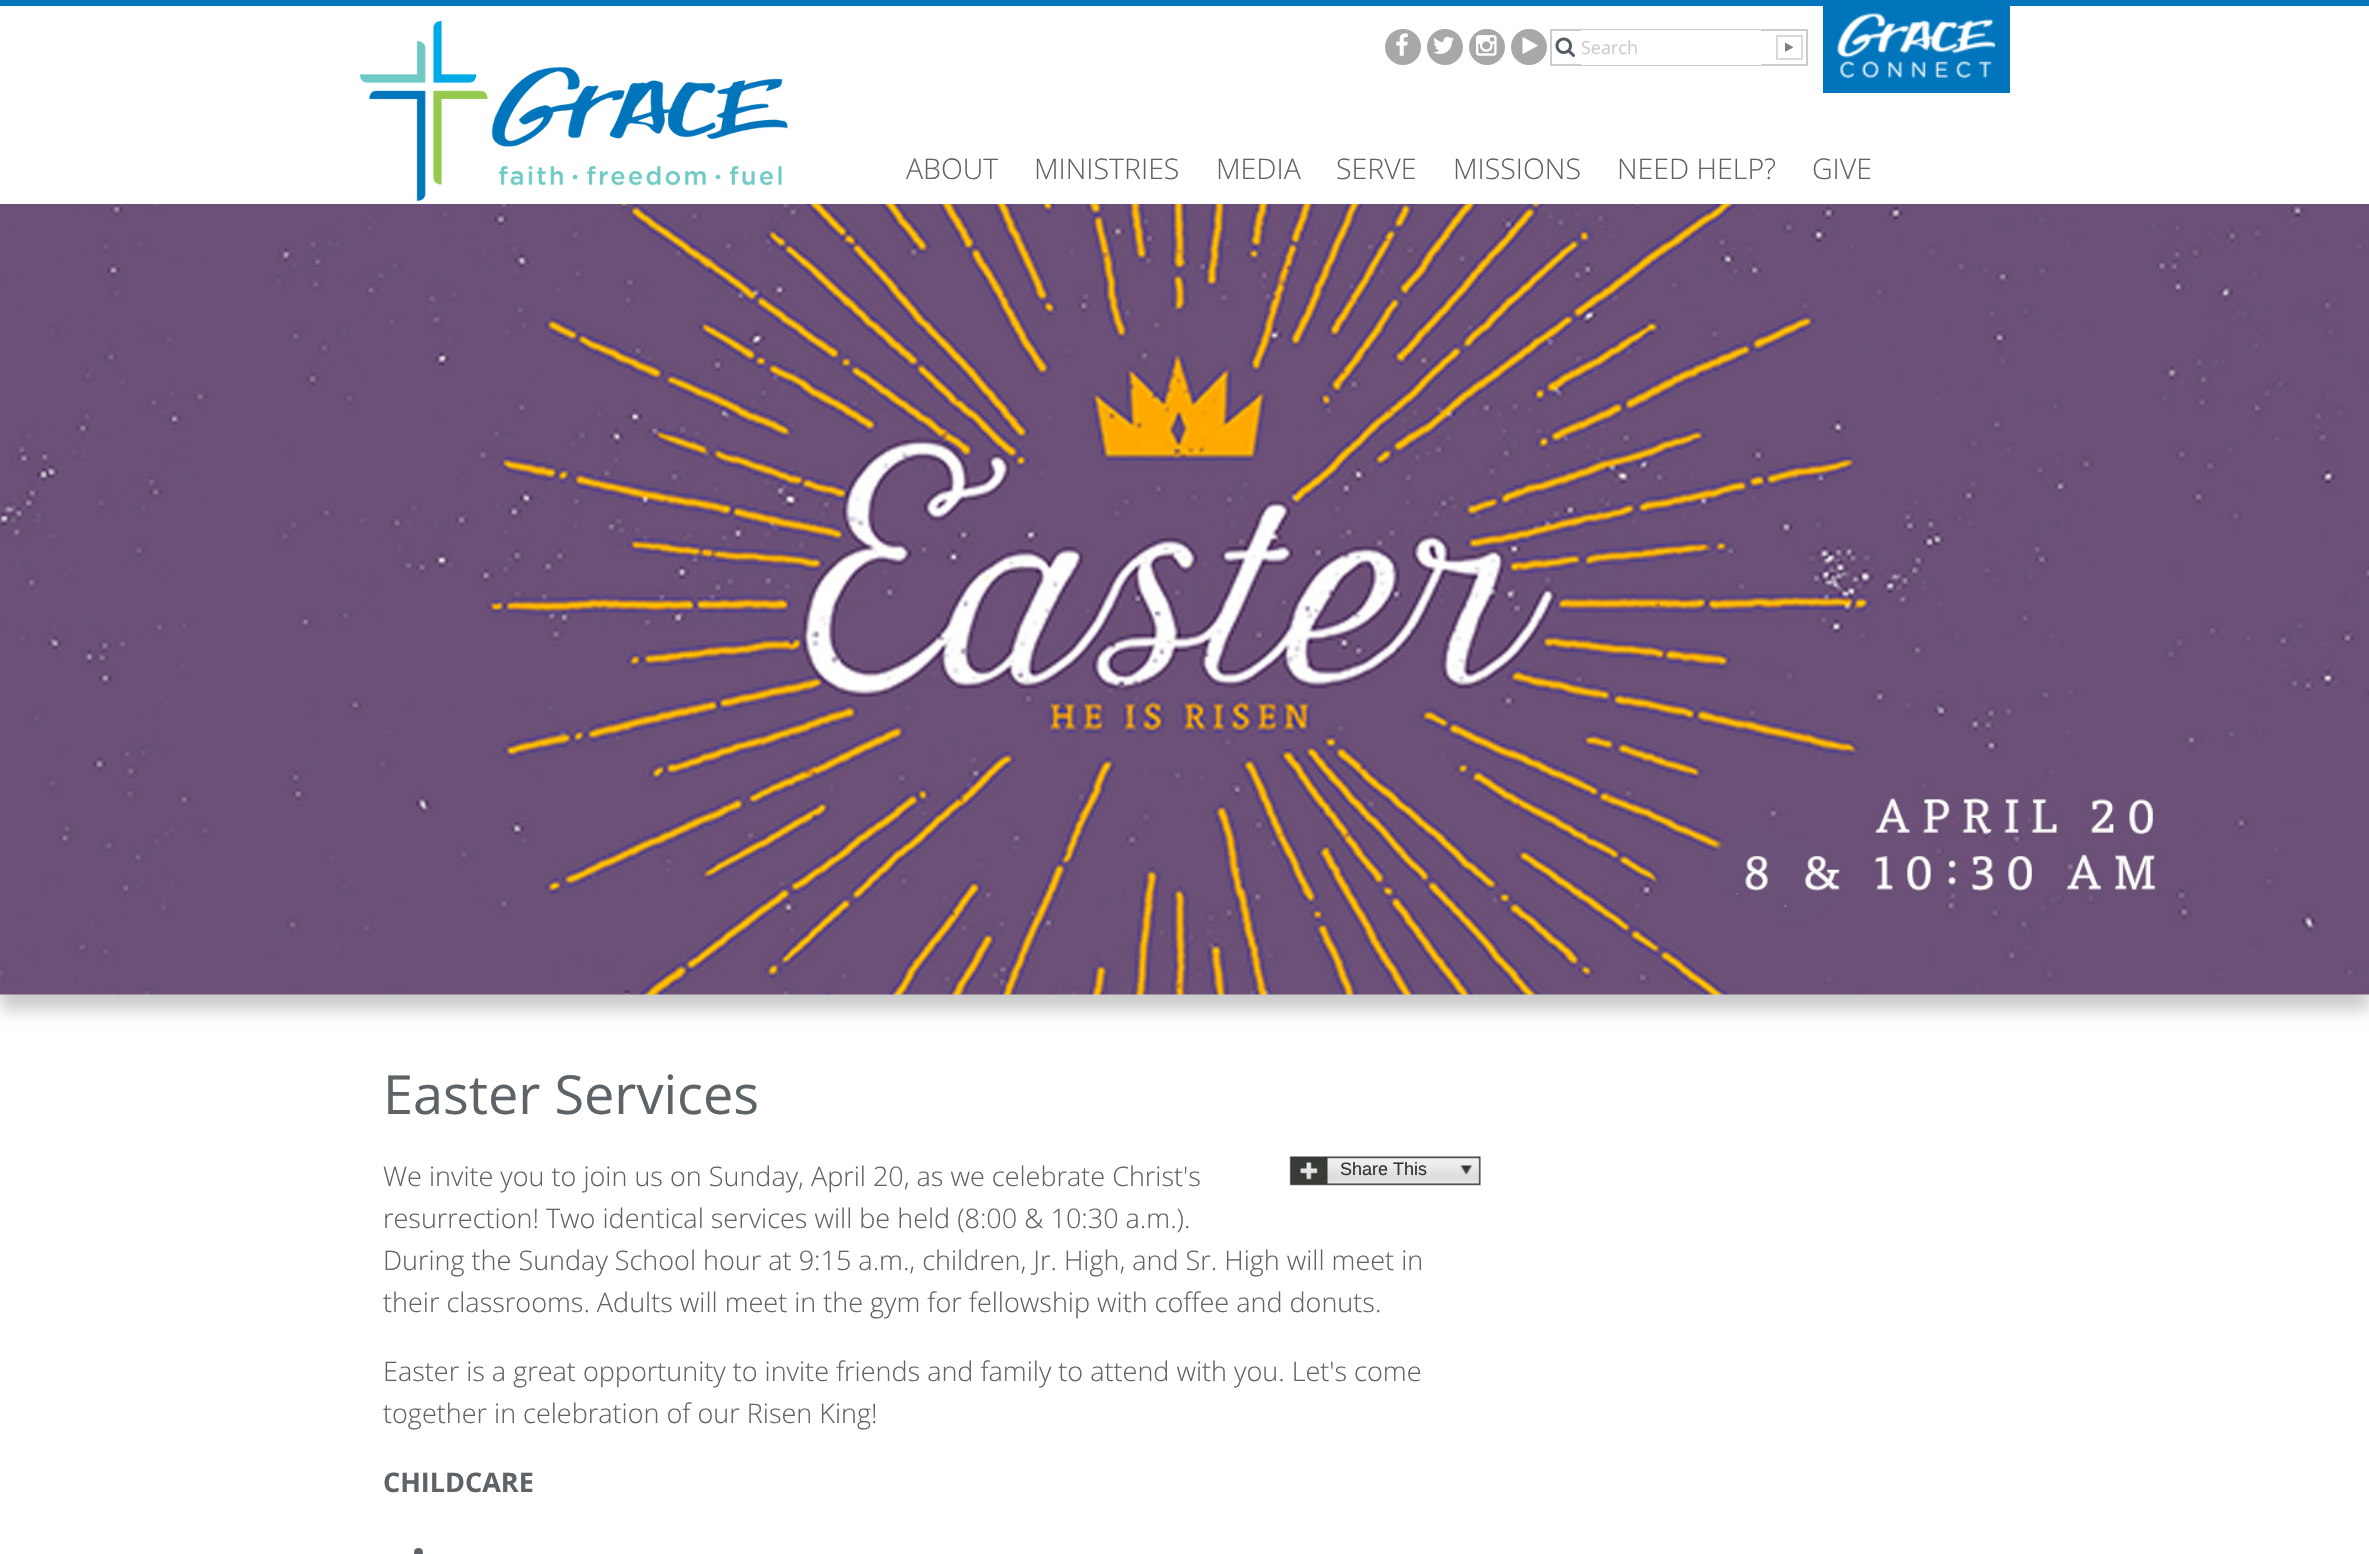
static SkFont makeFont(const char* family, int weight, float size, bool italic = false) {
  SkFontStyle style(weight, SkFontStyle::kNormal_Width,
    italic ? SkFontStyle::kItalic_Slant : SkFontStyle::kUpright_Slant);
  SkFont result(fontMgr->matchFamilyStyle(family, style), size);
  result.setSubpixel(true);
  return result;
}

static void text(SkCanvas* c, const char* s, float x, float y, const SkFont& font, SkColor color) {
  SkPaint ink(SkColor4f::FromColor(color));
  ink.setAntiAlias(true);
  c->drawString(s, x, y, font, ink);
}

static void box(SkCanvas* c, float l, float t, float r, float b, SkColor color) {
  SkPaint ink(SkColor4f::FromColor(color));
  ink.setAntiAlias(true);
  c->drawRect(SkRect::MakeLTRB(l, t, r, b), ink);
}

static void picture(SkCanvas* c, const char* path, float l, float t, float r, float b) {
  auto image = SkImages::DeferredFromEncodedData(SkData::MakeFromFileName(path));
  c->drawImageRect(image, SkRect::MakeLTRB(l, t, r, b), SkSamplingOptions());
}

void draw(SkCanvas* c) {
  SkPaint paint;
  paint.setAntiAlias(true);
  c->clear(0xffffffff);
  box(c, 0, 0, 2369, 6, 0xff0075bc);
  paint.setColor(0x33000000);
  paint.setMaskFilter(SkMaskFilter::MakeBlur(kNormal_SkBlurStyle, 7.5f));
  c->drawRect(SkRect::MakeLTRB(0, 219, 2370, 1010), paint);
  paint.setMaskFilter(nullptr);
  picture(c, "img_01.png", 360, 21, 788, 201);
  paint.setColor(0xffa8a8a8);
  c->drawCircle(1403, 47, 18, paint);
  picture(c, "img_02.png", 1396, 33, 1408, 56);
  c->drawCircle(1445, 47, 18, paint);
  picture(c, "img_03.png", 1433, 36, 1454, 54);
  c->drawCircle(1487, 47, 18, paint);
  picture(c, "img_04.png", 1476, 35, 1497, 56);
  c->drawCircle(1529, 47, 18, paint);
  picture(c, "img_05.png", 1522, 37, 1538, 54);
  paint.setStyle(SkPaint::kStroke_Style);
  paint.setStrokeWidth(2);
  paint.setColor(0xffcccccc);
  c->drawRect(SkRect::MakeLTRB(1551, 30, 1807, 65), paint);
  picture(c, "img_06.png", 1555, 37, 1575, 57);
  box(c, 1581, 30, 1761, 65, 0xffffffff);
  SkFont face1 = makeFont("Open Sans", 400, 18);
  text(c, "Search", 1581, 54, face1, 0xffcccccc);
  paint.setColor(0xffd8d9d9);
  c->drawRect(SkRect::MakeLTRB(1777, 36, 1802, 59), paint);
  picture(c, "img_07.png", 1785, 42, 1794, 52);
  box(c, 1823, 6, 2010, 93, 0xff0075bc);
  picture(c, "img_08.png", 1837, 13, 1995, 78);
  SkFont face2 = makeFont("Open Sans", 300, 28.5f);
  text(c, "ABOUT", 906, 179, face2, 0xff5e6367);
  text(c, "MINISTRIES", 1034, 179, face2, 0xff5e6367);
  text(c, "MEDIA", 1216, 179, face2, 0xff5e6367);
  text(c, "SERVE", 1336, 179, face2, 0xff5e6367);
  text(c, "MISSIONS", 1453, 179, face2, 0xff5e6367);
  text(c, "NEED HELP?", 1617, 179, face2, 0xff5e6367);
  text(c, "GIVE", 1812, 179, face2, 0xff5e6367);
  picture(c, "img_09.png", 0, 204, 2369, 995);
  SkFont face3 = makeFont("Open Sans", 400, 54);
  text(c, "Easter Services", 383, 1114, face3, 0xff5e6367);
  picture(c, "img_10.png", 1289, 1156, 1481, 1186);
  SkFont face4 = makeFont("Liberation Sans", 400, 18);
  text(c, "Share This", 1340, 1175, face4, 0xff333333);
  SkFont face5 = makeFont("Open Sans", 300, 27);
  text(c, "We invite you to join us on Sunday, April 20, as we celebrate Christ's", 383, 1186, face5, 0xff5e6367);
  text(c, "resurrection! Two identical services will be held (8:00 & 10:30 a.m.).", 383, 1228, face5, 0xff5e6367);
  text(c, "During the Sunday School hour at 9:15 a.m., children, Jr. High, and Sr. High will meet in", 383, 1270, face5, 0xff5e6367);
  text(c, "their classrooms. Adults will meet in the gym for fellowship with coffee and donuts.", 383, 1312, face5, 0xff5e6367);
  text(c, "Easter is a great opportunity to invite friends and family to attend with you. Let's come", 383, 1381, face5, 0xff5e6367);
  text(c, "together in celebration of our Risen King!", 383, 1423, face5, 0xff5e6367);
  SkFont face6 = makeFont("Open Sans", 700, 27);
  text(c, "CHILDCARE", 383, 1492, face6, 0xff5e6367);
  paint.setStyle(SkPaint::kFill_Style);
  paint.setColor(0xff5e6367);
  c->drawCircle(418.5f, 1552.5f, 4.5f, paint);
}
